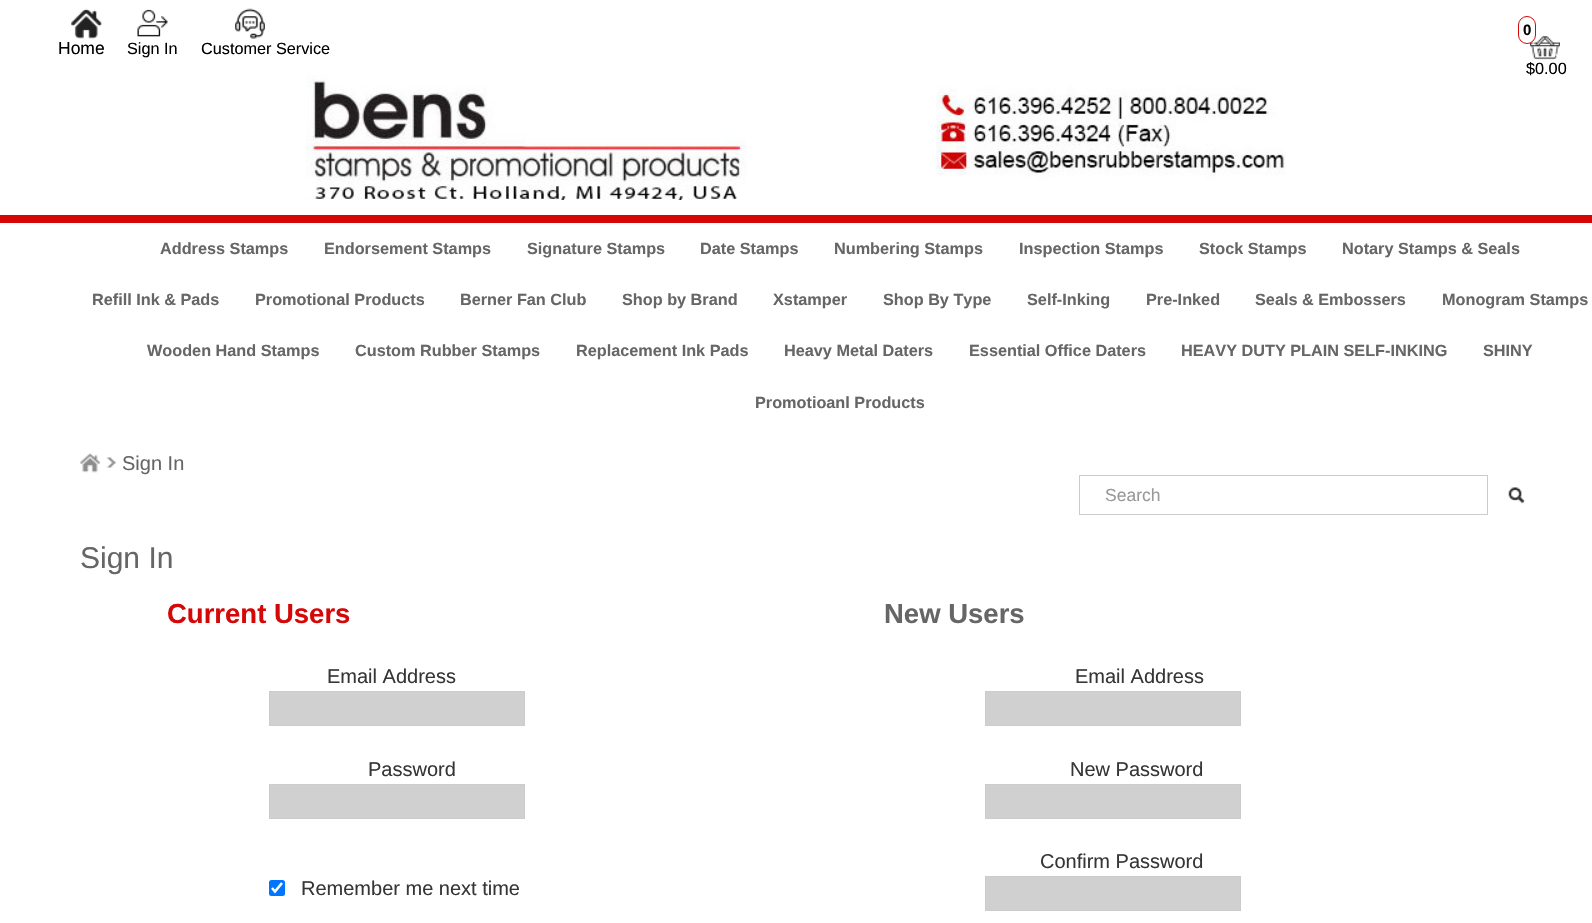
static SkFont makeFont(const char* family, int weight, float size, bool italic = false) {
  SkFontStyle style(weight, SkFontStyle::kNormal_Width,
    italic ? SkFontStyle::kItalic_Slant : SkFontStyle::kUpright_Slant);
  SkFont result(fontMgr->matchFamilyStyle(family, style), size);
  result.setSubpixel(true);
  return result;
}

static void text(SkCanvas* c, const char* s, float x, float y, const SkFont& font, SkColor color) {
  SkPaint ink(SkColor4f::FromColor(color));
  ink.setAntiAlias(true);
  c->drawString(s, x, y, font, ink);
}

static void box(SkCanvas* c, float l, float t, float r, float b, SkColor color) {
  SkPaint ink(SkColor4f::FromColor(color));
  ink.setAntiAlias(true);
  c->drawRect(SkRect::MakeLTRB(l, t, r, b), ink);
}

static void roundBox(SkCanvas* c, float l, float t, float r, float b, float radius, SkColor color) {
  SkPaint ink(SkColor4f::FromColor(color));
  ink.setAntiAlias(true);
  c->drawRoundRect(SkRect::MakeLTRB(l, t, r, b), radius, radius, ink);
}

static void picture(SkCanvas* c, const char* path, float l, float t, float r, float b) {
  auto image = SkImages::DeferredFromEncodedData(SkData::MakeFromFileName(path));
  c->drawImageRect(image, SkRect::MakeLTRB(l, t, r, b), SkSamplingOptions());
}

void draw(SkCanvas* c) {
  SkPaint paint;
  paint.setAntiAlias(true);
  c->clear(0xffffffff);
  picture(c, "img_01.png", 71, 8, 102, 39);
  SkFont face1 = makeFont("Liberation Sans", 400, 17.5f);
  text(c, "Home", 58, 54, face1, 0xff000000);
  picture(c, "img_02.png", 137, 9, 168, 37);
  SkFont face2 = makeFont("Liberation Sans", 400, 16.25f);
  text(c, "Sign In", 127, 54, face2, 0xff000000);
  picture(c, "img_03.png", 235, 8, 265, 39);
  text(c, "Customer Service", 201, 54, face2, 0xff000000);
  picture(c, "img_04.png", 1530, 36, 1560, 60);
  paint.setColor(0xffffffff);
  c->drawRoundRect(SkRect::MakeLTRB(1518.5f, 16.5f, 1535.5f, 43.5f), 8.5f, 8.5f, paint);
  paint.setStyle(SkPaint::kStroke_Style);
  paint.setStrokeWidth(1);
  paint.setColor(0xffd50707);
  c->drawRoundRect(SkRect::MakeLTRB(1518.5f, 16.5f, 1535.5f, 43.5f), 8.5f, 8.5f, paint);
  SkFont face3 = makeFont("Liberation Sans", 700, 15);
  text(c, "0", 1523, 35, face3, 0xff000000);
  text(c, "$0.00", 1526, 74, face2, 0xff000000);
  box(c, 0, 215, 1592, 223, 0xffd50707);
  picture(c, "img_05.png", 306, 75, 1286, 200);
  SkFont face4 = makeFont("Liberation Sans", 700, 16.25f);
  text(c, "Address Stamps", 160, 254, face4, 0xff666666);
  text(c, "Endorsement Stamps", 324, 254, face4, 0xff666666);
  text(c, "Signature Stamps", 527, 254, face4, 0xff666666);
  text(c, "Date Stamps", 700, 254, face4, 0xff666666);
  text(c, "Numbering Stamps", 834, 254, face4, 0xff666666);
  text(c, "Inspection Stamps", 1019, 254, face4, 0xff666666);
  text(c, "Stock Stamps", 1199, 254, face4, 0xff666666);
  text(c, "Notary Stamps & Seals", 1342, 254, face4, 0xff666666);
  text(c, "Refill Ink & Pads", 92, 305, face4, 0xff666666);
  text(c, "Promotional Products", 255, 305, face4, 0xff666666);
  text(c, "Berner Fan Club", 460, 305, face4, 0xff666666);
  text(c, "Shop by Brand", 622, 305, face4, 0xff666666);
  text(c, "Xstamper", 773, 305, face4, 0xff666666);
  text(c, "Shop By Type", 883, 305, face4, 0xff666666);
  text(c, "Self-Inking", 1027, 305, face4, 0xff666666);
  text(c, "Pre-Inked", 1146, 305, face4, 0xff666666);
  text(c, "Seals & Embossers", 1255, 305, face4, 0xff666666);
  text(c, "Monogram Stamps", 1442, 305, face4, 0xff666666);
  text(c, "Wooden Hand Stamps", 147, 356, face4, 0xff666666);
  text(c, "Custom Rubber Stamps", 355, 356, face4, 0xff666666);
  text(c, "Replacement Ink Pads", 576, 356, face4, 0xff666666);
  text(c, "Heavy Metal Daters", 784, 356, face4, 0xff666666);
  text(c, "Essential Office Daters", 969, 356, face4, 0xff666666);
  text(c, "HEAVY DUTY PLAIN SELF-INKING", 1181, 356, face4, 0xff666666);
  text(c, "SHINY", 1483, 356, face4, 0xff666666);
  text(c, "Promotioanl Products", 755, 408, face4, 0xff666666);
  picture(c, "img_06.png", 80, 453, 100, 473);
  picture(c, "img_07.png", 106, 457, 117, 468);
  SkFont face5 = makeFont("Liberation Sans", 400, 20);
  text(c, "Sign In", 122, 470, face5, 0xff666666);
  paint.setColor(0xffcccccc);
  c->drawRect(SkRect::MakeLTRB(1079.5f, 475.5f, 1487.5f, 514.5f), paint);
  text(c, "Search", 1105, 501, face1, 0xff999999);
  picture(c, "img_08.png", 1508, 487, 1525, 504);
  SkFont face6 = makeFont("Liberation Sans", 400, 30);
  text(c, "Sign In", 80, 568, face6, 0xff666666);
  SkFont face7 = makeFont("Liberation Sans", 700, 27.5f);
  text(c, "Current Users", 167, 623, face7, 0xffd50707);
  text(c, "Email Address", 327, 683, face5, 0xff363636);
  paint.setStyle(SkPaint::kFill_Style);
  paint.setColor(0xffd0d0d0);
  c->drawRect(SkRect::MakeLTRB(269.5f, 691.5f, 524.5f, 725.5f), paint);
  paint.setStyle(SkPaint::kStroke_Style);
  paint.setColor(0xffcccccc);
  c->drawRect(SkRect::MakeLTRB(269.5f, 691.5f, 524.5f, 725.5f), paint);
  text(c, "Password", 368, 776, face5, 0xff363636);
  paint.setStyle(SkPaint::kFill_Style);
  paint.setColor(0xffd0d0d0);
  c->drawRect(SkRect::MakeLTRB(269.5f, 784.5f, 524.5f, 818.5f), paint);
  paint.setStyle(SkPaint::kStroke_Style);
  paint.setColor(0xffcccccc);
  c->drawRect(SkRect::MakeLTRB(269.5f, 784.5f, 524.5f, 818.5f), paint);
  roundBox(c, 269, 880, 285, 896, 2.5f, 0xff0075ff);
  paint.setStrokeWidth(2.6f);
  paint.setColor(0xffffffff);
  c->drawPath(SkPathBuilder().moveTo(272, 888).lineTo(275, 891.5f).lineTo(282, 883).detach(), paint);
  text(c, "Remember me next time", 301, 895, face5, 0xff363636);
  text(c, "New Users", 884, 623, face7, 0xff666666);
  text(c, "Email Address", 1075, 683, face5, 0xff363636);
  paint.setStyle(SkPaint::kFill_Style);
  paint.setColor(0xffd0d0d0);
  c->drawRect(SkRect::MakeLTRB(985.5f, 691.5f, 1240.5f, 725.5f), paint);
  paint.setStyle(SkPaint::kStroke_Style);
  paint.setStrokeWidth(1);
  paint.setColor(0xffcccccc);
  c->drawRect(SkRect::MakeLTRB(985.5f, 691.5f, 1240.5f, 725.5f), paint);
  text(c, "New Password", 1070, 776, face5, 0xff363636);
  paint.setStyle(SkPaint::kFill_Style);
  paint.setColor(0xffd0d0d0);
  c->drawRect(SkRect::MakeLTRB(985.5f, 784.5f, 1240.5f, 818.5f), paint);
  paint.setStyle(SkPaint::kStroke_Style);
  paint.setColor(0xffcccccc);
  c->drawRect(SkRect::MakeLTRB(985.5f, 784.5f, 1240.5f, 818.5f), paint);
  text(c, "Confirm Password", 1040, 868, face5, 0xff363636);
  paint.setStyle(SkPaint::kFill_Style);
  paint.setColor(0xffd0d0d0);
  c->drawRect(SkRect::MakeLTRB(985.5f, 876.5f, 1240.5f, 910.5f), paint);
  paint.setStyle(SkPaint::kStroke_Style);
  paint.setColor(0xffcccccc);
  c->drawRect(SkRect::MakeLTRB(985.5f, 876.5f, 1240.5f, 910.5f), paint);
}
